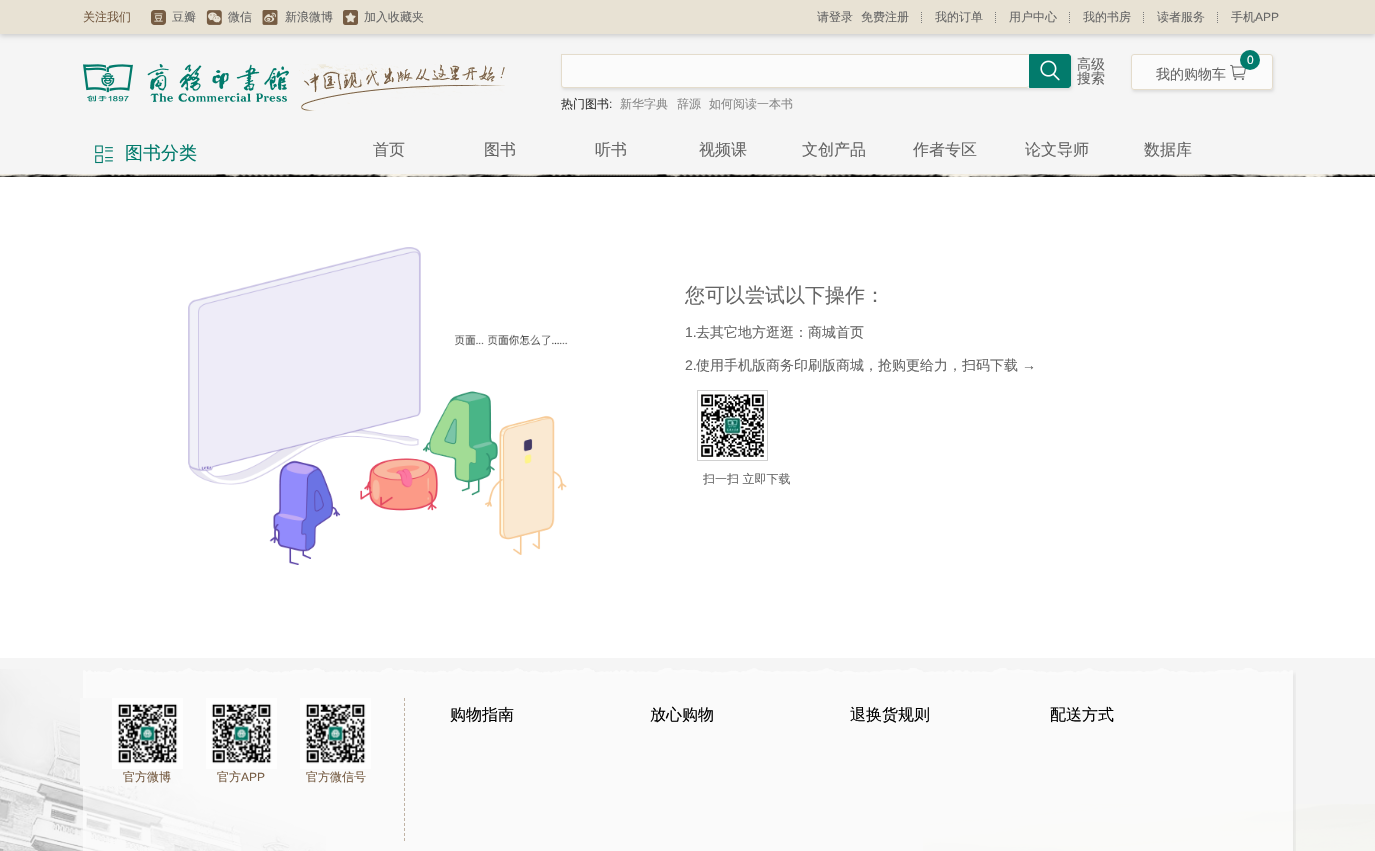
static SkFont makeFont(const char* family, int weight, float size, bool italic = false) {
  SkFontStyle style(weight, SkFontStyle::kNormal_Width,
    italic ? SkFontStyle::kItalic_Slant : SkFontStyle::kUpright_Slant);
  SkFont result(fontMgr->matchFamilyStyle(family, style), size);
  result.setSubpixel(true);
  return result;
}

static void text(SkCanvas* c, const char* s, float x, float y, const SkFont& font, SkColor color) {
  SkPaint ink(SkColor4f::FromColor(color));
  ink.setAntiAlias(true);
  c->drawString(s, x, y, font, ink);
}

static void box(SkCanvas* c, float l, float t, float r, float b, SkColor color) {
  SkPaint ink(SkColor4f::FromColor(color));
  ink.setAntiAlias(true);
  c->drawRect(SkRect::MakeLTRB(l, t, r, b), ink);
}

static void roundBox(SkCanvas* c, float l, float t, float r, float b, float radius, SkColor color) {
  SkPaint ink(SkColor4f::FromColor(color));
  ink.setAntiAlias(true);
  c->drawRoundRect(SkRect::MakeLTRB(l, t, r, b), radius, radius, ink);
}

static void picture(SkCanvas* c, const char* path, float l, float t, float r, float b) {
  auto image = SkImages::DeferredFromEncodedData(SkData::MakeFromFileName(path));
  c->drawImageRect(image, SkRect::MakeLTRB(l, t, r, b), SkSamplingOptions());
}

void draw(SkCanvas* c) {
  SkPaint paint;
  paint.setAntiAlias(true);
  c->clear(0xfff5f5f5);
  paint.setColor(0xffcccccc);
  paint.setMaskFilter(SkMaskFilter::MakeBlur(kNormal_SkBlurStyle, 2.5f));
  c->drawRect(SkRect::MakeLTRB(0, 2, 1375, 36), paint);
  paint.setMaskFilter(nullptr);
  box(c, 0, 0, 1375, 34, 0xffe8e2d4);
  SkFont face1 = makeFont("WenQuanYi Zen Hei", 500, 12);
  text(c, "关注我们", 83, 21, face1, 0xff765c43);
  picture(c, "img_01.png", 151, 10, 166, 25);
  text(c, "豆瓣", 172, 21, face1, 0xff666666);
  picture(c, "img_02.png", 206, 10, 222, 25);
  text(c, "微信", 228, 21, face1, 0xff666666);
  picture(c, "img_03.png", 262, 10, 278, 25);
  text(c, "新浪微博", 285, 21, face1, 0xff666666);
  picture(c, "img_04.png", 343, 10, 358, 25);
  text(c, "加入收藏夹", 364, 21, face1, 0xff666666);
  picture(c, "img_05.png", 921, 12, 922, 23);
  text(c, "请登录", 817, 21, face1, 0xff666666);
  text(c, "免费注册", 861, 21, face1, 0xff666666);
  picture(c, "img_05.png", 995, 12, 996, 23);
  text(c, "我的订单", 935, 21, face1, 0xff666666);
  picture(c, "img_05.png", 1069, 12, 1070, 23);
  text(c, "用户中心", 1009, 21, face1, 0xff666666);
  picture(c, "img_05.png", 1143, 12, 1144, 23);
  text(c, "我的书房", 1083, 21, face1, 0xff666666);
  picture(c, "img_05.png", 1217, 12, 1218, 23);
  text(c, "读者服务", 1157, 21, face1, 0xff666666);
  text(c, "手机", 1231, 21, face1, 0xff666666);
  SkFont face2 = makeFont("Liberation Sans", 400, 12);
  text(c, "APP", 1255, 21, face2, 0xff666666);
  picture(c, "img_06.png", 83, 64, 289, 102);
  picture(c, "img_07.png", 299, 64, 505, 111);
  c->save();
  c->clipPath(SkPathBuilder(SkPathFillType::kEvenOdd).moveTo(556, 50).lineTo(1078, 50).lineTo(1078, 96).lineTo(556, 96).close().moveTo(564, 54).lineTo(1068, 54).cubicTo(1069.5f, 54, 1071, 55.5f, 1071, 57).lineTo(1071, 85).cubicTo(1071, 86.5f, 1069.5f, 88, 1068, 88).lineTo(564, 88).cubicTo(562.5f, 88, 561, 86.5f, 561, 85).lineTo(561, 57).cubicTo(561, 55.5f, 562.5f, 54, 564, 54).close().detach(), true);
  paint.setColor(0xffdddddd);
  paint.setMaskFilter(SkMaskFilter::MakeBlur(kNormal_SkBlurStyle, 1.5f));
  c->drawRoundRect(SkRect::MakeLTRB(562, 56, 1072, 90), 3, 3, paint);
  paint.setMaskFilter(nullptr);
  c->restore();
  roundBox(c, 561, 54, 1071, 88, 3, 0x99ffffff);
  paint.setColor(0xffe4dccc);
  c->drawPath(SkPathBuilder(SkPathFillType::kEvenOdd).moveTo(561, 54).lineTo(1029, 54).lineTo(1029, 85).cubicTo(1029, 87, 1028, 88, 1026, 88).lineTo(564, 88).cubicTo(562, 88, 561, 87, 561, 85).close().moveTo(562, 55).lineTo(1029, 55).lineTo(1029, 85).cubicTo(1029, 86, 1028, 87, 1026, 87).lineTo(564, 87).cubicTo(563, 87, 562, 86, 562, 85).close().detach(), paint);
  paint.setColor(0xff027b6c);
  c->drawPath(SkPathBuilder().moveTo(1029.5f, 54.5f).lineTo(1068, 54.5f).cubicTo(1069.5f, 54.5f, 1070.5f, 55.5f, 1070.5f, 57).lineTo(1070.5f, 85).cubicTo(1070.5f, 86.5f, 1069.5f, 87.5f, 1068, 87.5f).lineTo(1029.5f, 87.5f).close().detach(), paint);
  paint.setStyle(SkPaint::kStroke_Style);
  paint.setStrokeWidth(1);
  c->drawPath(SkPathBuilder().moveTo(1029.5f, 54.5f).lineTo(1068, 54.5f).cubicTo(1069.5f, 54.5f, 1070.5f, 55.5f, 1070.5f, 57).lineTo(1070.5f, 85).cubicTo(1070.5f, 86.5f, 1069.5f, 87.5f, 1068, 87.5f).lineTo(1029.5f, 87.5f).close().detach(), paint);
  picture(c, "img_08.png", 1040, 60, 1060, 81);
  SkFont face3 = makeFont("WenQuanYi Zen Hei", 500, 14);
  text(c, "高级", 1077, 69, face3, 0xff666666);
  text(c, "搜索", 1077, 83, face3, 0xff666666);
  text(c, "热门图书", 561, 108, face1, 0xff333333);
  text(c, ":", 609, 108, face2, 0xff333333);
  text(c, "新华字典", 620, 108, face1, 0xff888888);
  text(c, "辞源", 677, 108, face1, 0xff888888);
  text(c, "如何阅读一本书", 709, 108, face1, 0xff888888);
  c->save();
  c->clipPath(SkPathBuilder(SkPathFillType::kEvenOdd).moveTo(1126, 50).lineTo(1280, 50).lineTo(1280, 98).lineTo(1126, 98).close().moveTo(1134, 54).lineTo(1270, 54).cubicTo(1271.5f, 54, 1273, 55.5f, 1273, 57).lineTo(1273, 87).cubicTo(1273, 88.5f, 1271.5f, 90, 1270, 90).lineTo(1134, 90).cubicTo(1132.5f, 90, 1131, 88.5f, 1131, 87).lineTo(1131, 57).cubicTo(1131, 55.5f, 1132.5f, 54, 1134, 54).close().detach(), true);
  paint.setStyle(SkPaint::kFill_Style);
  paint.setColor(0xffdddddd);
  paint.setMaskFilter(SkMaskFilter::MakeBlur(kNormal_SkBlurStyle, 1.5f));
  c->drawRoundRect(SkRect::MakeLTRB(1132, 56, 1274, 92), 3, 3, paint);
  paint.setMaskFilter(nullptr);
  c->restore();
  paint.setColor(0x99ffffff);
  c->drawRoundRect(SkRect::MakeLTRB(1131.5f, 54.5f, 1272.5f, 89.5f), 2.5f, 2.5f, paint);
  paint.setStyle(SkPaint::kStroke_Style);
  paint.setColor(0xffe4dccc);
  c->drawRoundRect(SkRect::MakeLTRB(1131.5f, 54.5f, 1272.5f, 89.5f), 2.5f, 2.5f, paint);
  picture(c, "img_09.png", 1230, 64, 1246, 81);
  paint.setStyle(SkPaint::kFill_Style);
  paint.setColor(0xff027b6c);
  c->drawCircle(1250, 60, 10, paint);
  text(c, "0", 1247, 64, face2, 0xffffffff);
  text(c, "我的购物车", 1156, 79, face3, 0xff666666);
  picture(c, "img_10.png", 95, 145, 113, 164);
  SkFont face4 = makeFont("WenQuanYi Zen Hei", 500, 18);
  text(c, "图书分类", 125, 159, face4, 0xff027b6c);
  SkFont face5 = makeFont("WenQuanYi Zen Hei", 500, 16);
  text(c, "首页", 373, 155, face5, 0xff666666);
  text(c, "图书", 484, 155, face5, 0xff666666);
  text(c, "听书", 595, 155, face5, 0xff666666);
  text(c, "视频课", 699, 155, face5, 0xff666666);
  text(c, "文创产品", 802, 155, face5, 0xff666666);
  text(c, "作者专区", 913, 155, face5, 0xff666666);
  text(c, "论文导师", 1025, 155, face5, 0xff666666);
  text(c, "数据库", 1144, 155, face5, 0xff666666);
  picture(c, "img_11.png", 0, 174, 1375, 177);
  box(c, 0, 177, 1375, 658, 0xffffffff);
  picture(c, "img_12.png", 188, 247, 568, 565);
  SkFont face6 = makeFont("WenQuanYi Zen Hei", 500, 20);
  text(c, "您可以尝试以下操作：", 685, 302, face6, 0xff666666);
  SkFont face7 = makeFont("Liberation Sans", 400, 14);
  text(c, "1.", 685, 337, face7, 0xff666666);
  text(c, "去其它地方逛逛：商城首页", 696, 337, face3, 0xff666666);
  text(c, "2.", 685, 370, face7, 0xff666666);
  text(c, "使用手机版商务印刷版商城，抢购更给力，扫码下载", 696, 370, face3, 0xff666666);
  text(c, "→", 1022, 370, face7, 0xff666666);
  picture(c, "img_13.png", 697, 390, 768, 461);
  text(c, "扫一扫 立即下载", 703, 483, face1, 0xff666666);
  picture(c, "img_14.png", 0, 669, 326, 851);
  picture(c, "img_15.png", 923, 804, 1375, 851);
  picture(c, "img_16.png", 83, 668, 1296, 851);
  paint.setStyle(SkPaint::kStroke_Style);
  paint.setColor(0xffc0b3a5);
  paint.setPathEffect(SkDashPathEffect::Make({{3, 2}}, 0));
  c->drawPath(SkPathBuilder().moveTo(404.5f, 698).lineTo(404.5f, 841).detach(), paint);
  paint.setPathEffect(nullptr);
  text(c, "购物指南", 450, 720, face5, 0xff000000);
  text(c, "放心购物", 650, 720, face5, 0xff000000);
  text(c, "退换货规则", 850, 720, face5, 0xff000000);
  text(c, "配送方式", 1050, 720, face5, 0xff000000);
  box(c, 80, 698, 141, 786, 0xfff8f8f8);
  picture(c, "img_17.png", 112, 698, 183, 769);
  text(c, "官方微博", 123, 781, face1, 0xff765c43);
  picture(c, "img_18.png", 206, 698, 277, 769);
  text(c, "官方", 217, 781, face1, 0xff765c43);
  text(c, "APP", 241, 781, face2, 0xff765c43);
  picture(c, "img_17.png", 300, 698, 371, 769);
  text(c, "官方微信号", 306, 781, face1, 0xff765c43);
}
